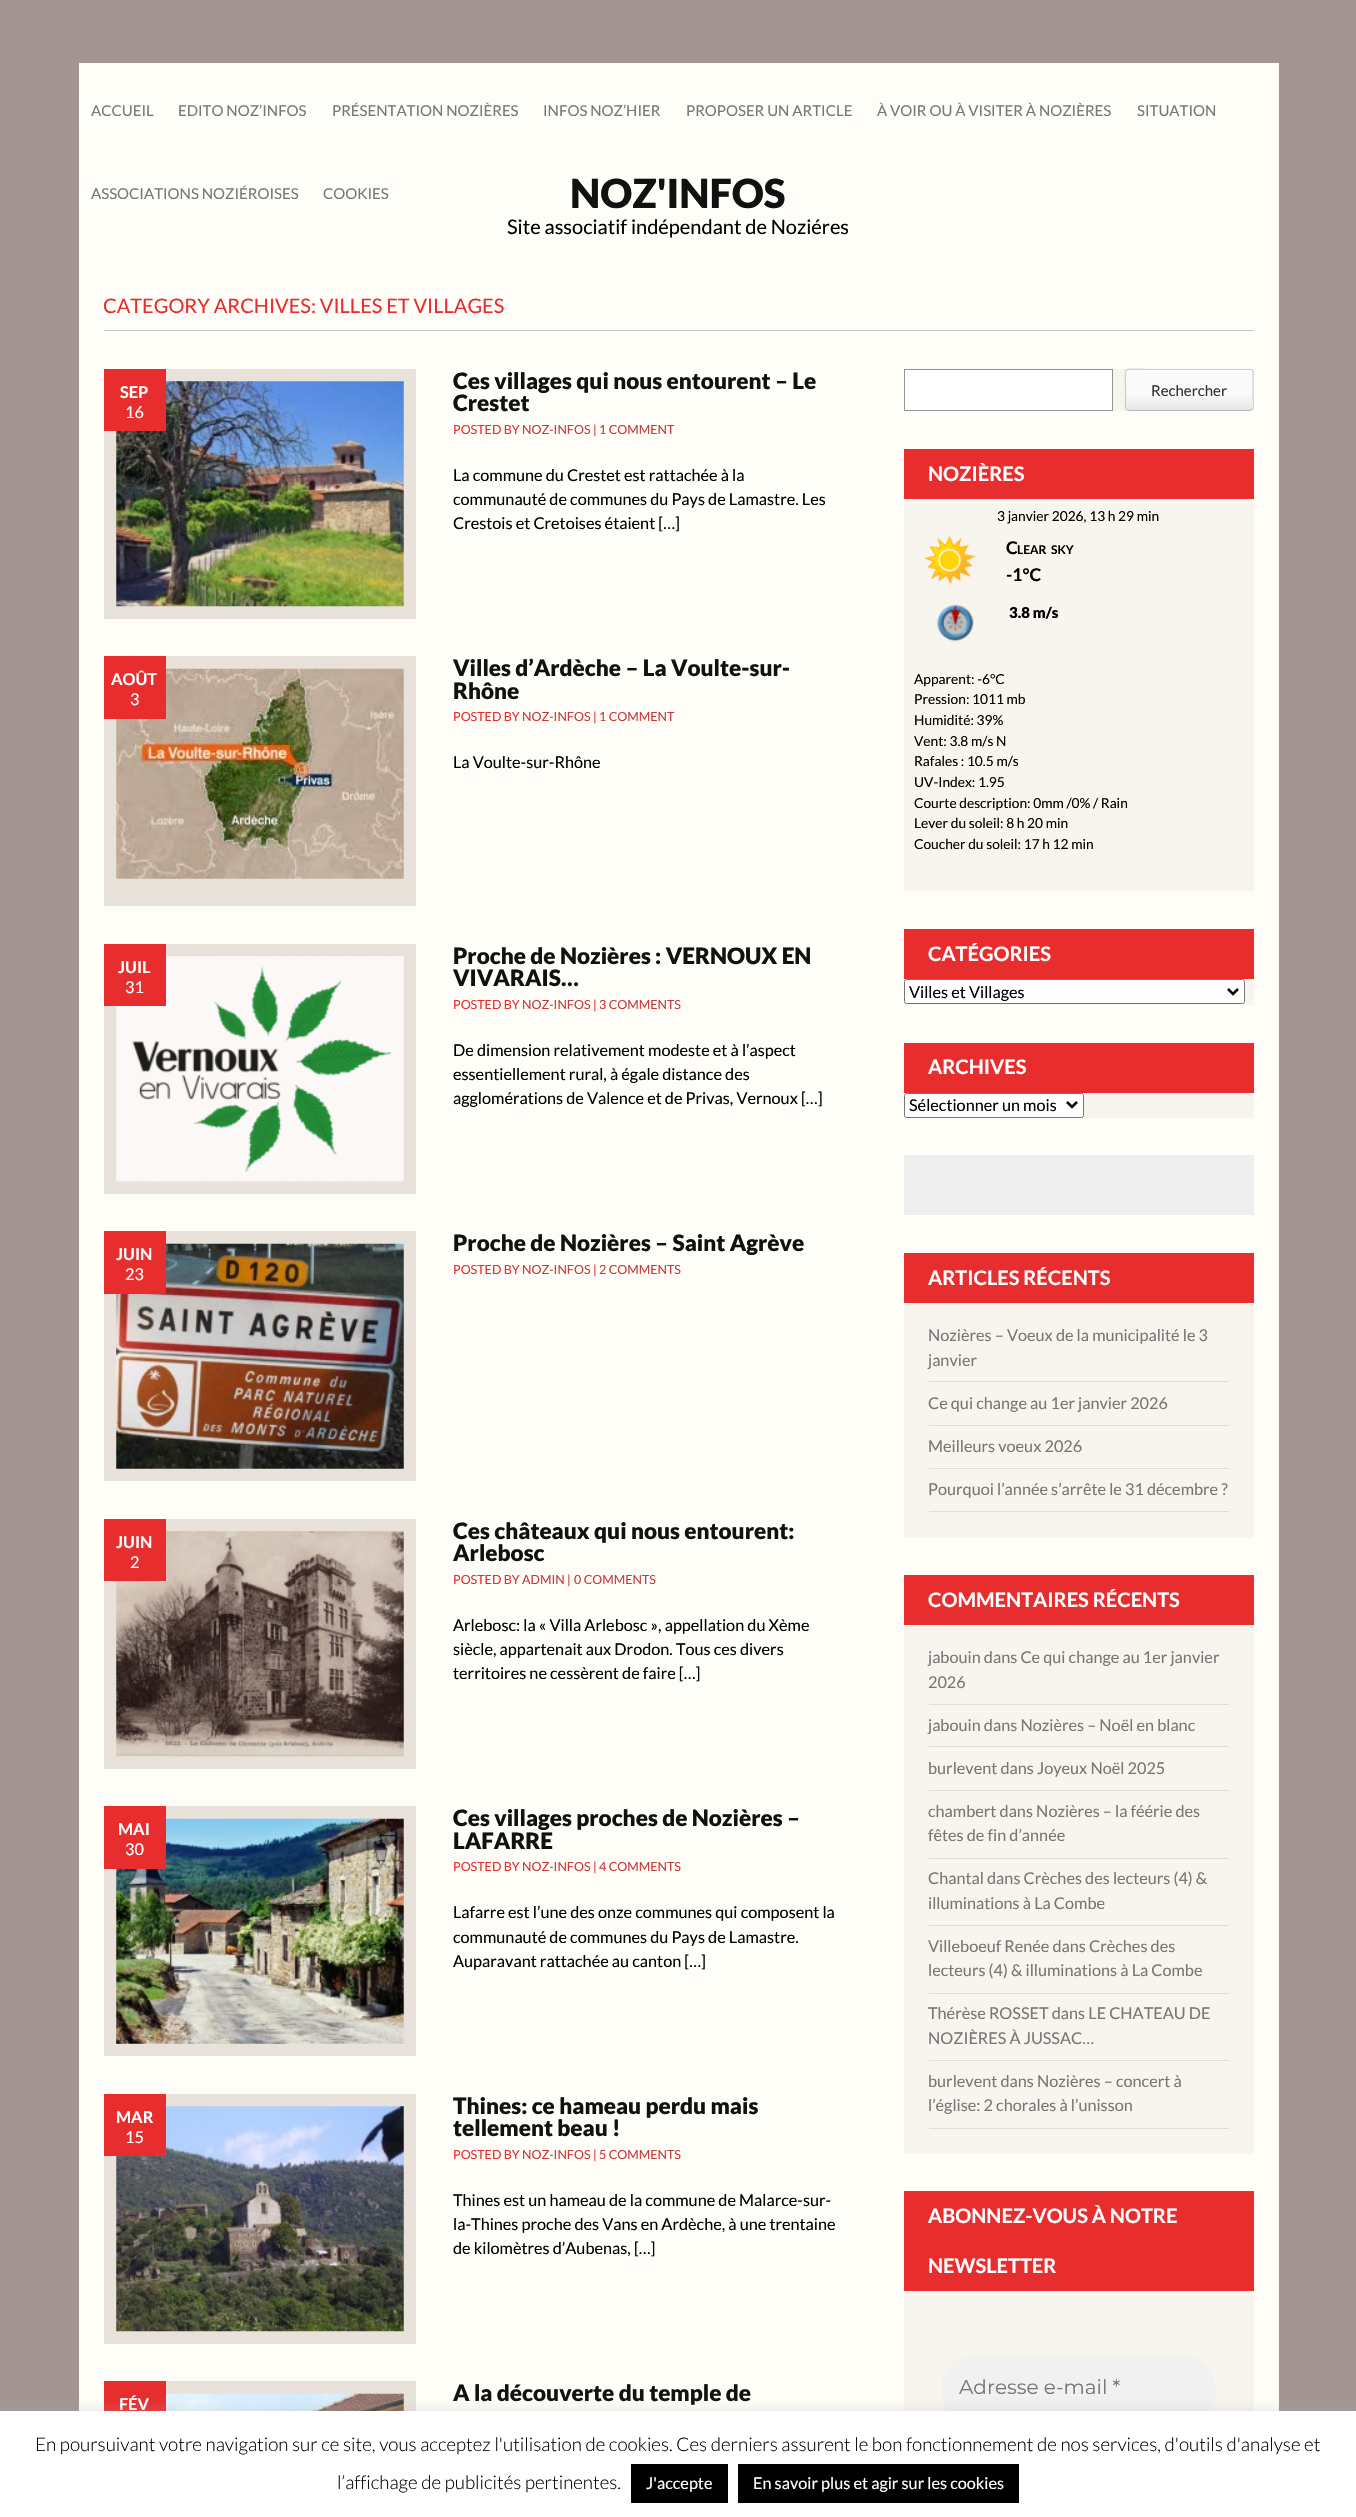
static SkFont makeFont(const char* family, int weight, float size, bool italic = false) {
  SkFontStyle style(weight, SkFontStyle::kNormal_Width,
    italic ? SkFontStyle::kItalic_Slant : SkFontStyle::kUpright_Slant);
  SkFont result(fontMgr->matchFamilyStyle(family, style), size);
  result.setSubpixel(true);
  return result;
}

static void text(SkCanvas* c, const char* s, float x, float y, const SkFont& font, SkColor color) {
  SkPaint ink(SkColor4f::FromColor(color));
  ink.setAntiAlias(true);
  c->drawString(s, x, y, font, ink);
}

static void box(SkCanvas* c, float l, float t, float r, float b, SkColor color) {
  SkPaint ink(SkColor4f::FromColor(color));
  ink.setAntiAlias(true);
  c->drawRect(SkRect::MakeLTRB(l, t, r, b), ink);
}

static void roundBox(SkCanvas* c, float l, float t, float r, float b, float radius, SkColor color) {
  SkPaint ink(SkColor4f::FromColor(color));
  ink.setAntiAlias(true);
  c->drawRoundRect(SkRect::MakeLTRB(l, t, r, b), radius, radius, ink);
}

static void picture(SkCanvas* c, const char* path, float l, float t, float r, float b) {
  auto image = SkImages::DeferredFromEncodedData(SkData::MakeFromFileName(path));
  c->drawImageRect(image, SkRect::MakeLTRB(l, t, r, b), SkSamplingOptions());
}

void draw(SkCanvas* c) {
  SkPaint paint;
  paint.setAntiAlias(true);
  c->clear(0xffa39692);
  box(c, 79, 63, 1279, 2411, 0xfffffdf8);
  SkFont face1 = makeFont("Lato", 400, 15);
  text(c, "ACCUEIL", 91, 116, face1, 0xff777777);
  text(c, "EDITO NOZ’INFOS", 178, 116, face1, 0xff777777);
  text(c, "PRÉSENTATION NOZIÈRES", 332, 116, face1, 0xff777777);
  text(c, "INFOS NOZ’HIER", 543, 116, face1, 0xff777777);
  text(c, "PROPOSER UN ARTICLE", 686, 116, face1, 0xff777777);
  text(c, "À VOIR OU À VISITER À NOZIÈRES", 877, 116, face1, 0xff777777);
  text(c, "SITUATION", 1137, 116, face1, 0xff777777);
  text(c, "ASSOCIATIONS NOZIÉROISES", 91, 199, face1, 0xff777777);
  text(c, "COOKIES", 323, 199, face1, 0xff777777);
  SkFont face2 = makeFont("Lato", 900, 40);
  text(c, "NOZ'INFOS", 570, 208, face2, 0xff111111);
  SkFont face3 = makeFont("Lato", 400, 20);
  text(c, "Site associatif indépendant de Noziéres", 507, 234, face3, 0xff000000);
  box(c, 104, 330, 1254, 331, 0xffc5c5c5);
  text(c, "CATEGORY ARCHIVES: VILLES ET VILLAGES", 103, 313, face3, 0xffe72d2e);
  box(c, 104, 369, 416, 619, 0xffe8e2da);
  picture(c, "img_01.png", 116, 381, 404, 607);
  box(c, 104, 369, 166, 431, 0xffe72d2e);
  SkFont face4 = makeFont("Lato", 700, 16.25f);
  text(c, "SEP", 120, 398, face4, 0xffffffff);
  SkFont face5 = makeFont("Lato", 400, 16.25f);
  text(c, "16", 125, 418, face5, 0xffffffff);
  SkFont face6 = makeFont("Lato", 900, 22.5f);
  text(c, "Ces villages qui nous entourent – Le", 453, 389, face6, 0xff111111);
  text(c, "Crestet", 453, 411, face6, 0xff111111);
  SkFont face7 = makeFont("Lato", 400, 12.5f);
  text(c, "POSTED BY", 453, 434, face7, 0xffe72d2e);
  text(c, "NOZ-INFOS", 522, 434, face7, 0xffc7393b);
  text(c, "|", 593, 434, face7, 0xffe72d2e);
  text(c, "1 COMMENT", 599, 434, face7, 0xffc7393b);
  text(c, "La commune du Crestet est rattachée à la", 453, 481, face5, 0xff000000);
  text(c, "communauté de communes du Pays de Lamastre. Les", 453, 505, face5, 0xff000000);
  text(c, "Crestois et Cretoises étaient […]", 453, 529, face5, 0xff000000);
  box(c, 104, 656, 416, 906, 0xffe8e2da);
  picture(c, "img_02.png", 116, 668, 404, 879);
  box(c, 104, 656, 166, 719, 0xffe72d2e);
  text(c, "AOÛT", 111, 685, face4, 0xffffffff);
  text(c, "3", 130, 705, face5, 0xffffffff);
  text(c, "Villes d’Ardèche – La Voulte-sur-", 453, 676, face6, 0xff111111);
  text(c, "Rhône", 453, 699, face6, 0xff111111);
  text(c, "POSTED BY", 453, 721, face7, 0xffe72d2e);
  text(c, "NOZ-INFOS", 522, 721, face7, 0xffc7393b);
  text(c, "|", 593, 721, face7, 0xffe72d2e);
  text(c, "1 COMMENT", 599, 721, face7, 0xffc7393b);
  text(c, "La Voulte-sur-Rhône", 453, 768, face5, 0xff000000);
  box(c, 104, 944, 416, 1194, 0xffe8e2da);
  picture(c, "img_03.png", 116, 956, 404, 1182);
  box(c, 104, 944, 166, 1006, 0xffe72d2e);
  text(c, "JUIL", 118, 973, face4, 0xffffffff);
  text(c, "31", 125, 993, face5, 0xffffffff);
  text(c, "Proche de Nozières : VERNOUX EN", 453, 964, face6, 0xff111111);
  text(c, "VIVARAIS…", 453, 986, face6, 0xff111111);
  text(c, "POSTED BY", 453, 1009, face7, 0xffe72d2e);
  text(c, "NOZ-INFOS", 522, 1009, face7, 0xffc7393b);
  text(c, "|", 593, 1009, face7, 0xffe72d2e);
  text(c, "3 COMMENTS", 599, 1009, face7, 0xffc7393b);
  text(c, "De dimension relativement modeste et à l’aspect", 453, 1056, face5, 0xff000000);
  text(c, "essentiellement rural, à égale distance des", 453, 1080, face5, 0xff000000);
  text(c, "agglomérations de Valence et de Privas, Vernoux […]", 453, 1104, face5, 0xff000000);
  box(c, 104, 1231, 416, 1481, 0xffe8e2da);
  picture(c, "img_04.png", 116, 1243, 404, 1469);
  box(c, 104, 1231, 166, 1294, 0xffe72d2e);
  text(c, "JUIN", 116, 1260, face4, 0xffffffff);
  text(c, "23", 125, 1280, face5, 0xffffffff);
  text(c, "Proche de Nozières – Saint Agrève", 453, 1251, face6, 0xff111111);
  text(c, "POSTED BY", 453, 1274, face7, 0xffe72d2e);
  text(c, "NOZ-INFOS", 522, 1274, face7, 0xffc7393b);
  text(c, "|", 593, 1274, face7, 0xffe72d2e);
  text(c, "2 COMMENTS", 599, 1274, face7, 0xffc7393b);
  box(c, 104, 1519, 416, 1769, 0xffe8e2da);
  picture(c, "img_05.png", 116, 1531, 404, 1757);
  box(c, 104, 1519, 166, 1581, 0xffe72d2e);
  text(c, "JUIN", 116, 1548, face4, 0xffffffff);
  text(c, "2", 130, 1568, face5, 0xffffffff);
  text(c, "Ces châteaux qui nous entourent:", 453, 1539, face6, 0xff111111);
  text(c, "Arlebosc", 453, 1561, face6, 0xff111111);
  text(c, "POSTED BY", 453, 1584, face7, 0xffe72d2e);
  text(c, "ADMIN", 522, 1584, face7, 0xffc7393b);
  text(c, "|", 567, 1584, face7, 0xffe72d2e);
  text(c, "0 COMMENTS", 574, 1584, face7, 0xffc7393b);
  text(c, "Arlebosc: la « Villa Arlebosc », appellation du Xème", 453, 1631, face5, 0xff000000);
  text(c, "siècle, appartenait aux Drodon. Tous ces divers", 453, 1655, face5, 0xff000000);
  text(c, "territoires ne cessèrent de faire […]", 453, 1679, face5, 0xff000000);
  box(c, 104, 1806, 416, 2056, 0xffe8e2da);
  picture(c, "img_06.png", 116, 1818, 404, 2044);
  box(c, 104, 1806, 166, 1869, 0xffe72d2e);
  text(c, "MAI", 118, 1835, face4, 0xffffffff);
  text(c, "30", 125, 1855, face5, 0xffffffff);
  text(c, "Ces villages proches de Nozières –", 453, 1826, face6, 0xff111111);
  text(c, "LAFARRE", 453, 1849, face6, 0xff111111);
  text(c, "POSTED BY", 453, 1871, face7, 0xffe72d2e);
  text(c, "NOZ-INFOS", 522, 1871, face7, 0xffc7393b);
  text(c, "|", 593, 1871, face7, 0xffe72d2e);
  text(c, "4 COMMENTS", 599, 1871, face7, 0xffc7393b);
  text(c, "Lafarre est l’une des onze communes qui composent la", 453, 1918, face5, 0xff000000);
  text(c, "communauté de communes du Pays de Lamastre.", 453, 1943, face5, 0xff000000);
  text(c, "Auparavant rattachée au canton […]", 453, 1967, face5, 0xff000000);
  box(c, 104, 2094, 416, 2344, 0xffe8e2da);
  picture(c, "img_07.png", 116, 2106, 404, 2332);
  box(c, 104, 2094, 166, 2156, 0xffe72d2e);
  text(c, "MAR", 116, 2123, face4, 0xffffffff);
  text(c, "15", 125, 2143, face5, 0xffffffff);
  text(c, "Thines: ce hameau perdu mais", 453, 2114, face6, 0xff111111);
  text(c, "tellement beau !", 453, 2136, face6, 0xff111111);
  text(c, "POSTED BY", 453, 2159, face7, 0xffe72d2e);
  text(c, "NOZ-INFOS", 522, 2159, face7, 0xffc7393b);
  text(c, "|", 593, 2159, face7, 0xffe72d2e);
  text(c, "5 COMMENTS", 599, 2159, face7, 0xffc7393b);
  text(c, "Thines est un hameau de la commune de Malarce-sur-", 453, 2206, face5, 0xff000000);
  text(c, "la-Thines proche des Vans en Ardèche, à une trentaine", 453, 2230, face5, 0xff000000);
  text(c, "de kilomètres d’Aubenas, […]", 453, 2254, face5, 0xff000000);
  box(c, 166, 2381, 416, 2411, 0xffe8e2da);
  box(c, 104, 2381, 166, 2411, 0xffe72d2e);
  text(c, "FÉV", 119, 2410, face4, 0xffffffff);
  picture(c, "img_08.png", 166, 2393, 404, 2411);
  text(c, "A la découverte du temple de", 453, 2401, face6, 0xff111111);
  box(c, 1113, 369, 1254, 411, 0xfff8f5ee);
  paint.setColor(0xffffffff);
  c->drawRect(SkRect::MakeLTRB(904.5f, 369.5f, 1112.5f, 410.5f), paint);
  paint.setStyle(SkPaint::kStroke_Style);
  paint.setStrokeWidth(1);
  paint.setColor(0xff949494);
  c->drawRect(SkRect::MakeLTRB(904.5f, 369.5f, 1112.5f, 410.5f), paint);
  c->save();
  c->clipPath(SkPathBuilder().moveTo(1129, 369).lineTo(1250, 369).cubicTo(1252, 369, 1254, 371, 1254, 373).lineTo(1254, 407).cubicTo(1254, 409, 1252, 411, 1250, 411).lineTo(1129, 411).cubicTo(1127, 411, 1125, 409, 1125, 407).lineTo(1125, 373).cubicTo(1125, 371, 1127, 369, 1129, 369).close().detach(), true);
  paint.setStyle(SkPaint::kFill_Style);
  {
    const SkColor colors[] = {0xfffafafa, 0xffe6e6e6};
    const float stops[] = {0.6f, 1};
    const SkPoint ends[] = {{1189, 330}, {1189, 370}};
    paint.setShader(SkGradientShader::MakeLinear(ends, colors, stops, 2, SkTileMode::kClamp));
    paint.setAlpha(255);
  }
  c->drawRect(SkRect::MakeLTRB(1125, 369, 1254, 370), paint);
  {
    const SkColor colors[] = {0xfffafafa, 0xffe6e6e6};
    const float stops[] = {0.6f, 1};
    const SkPoint ends[] = {{1189, 370}, {1189, 410}};
    paint.setShader(SkGradientShader::MakeLinear(ends, colors, stops, 2, SkTileMode::kClamp));
    paint.setAlpha(255);
  }
  c->drawRect(SkRect::MakeLTRB(1125, 370, 1254, 410), paint);
  {
    const SkColor colors[] = {0xfffafafa, 0xffe6e6e6};
    const float stops[] = {0.6f, 1};
    const SkPoint ends[] = {{1189, 410}, {1189, 450}};
    paint.setShader(SkGradientShader::MakeLinear(ends, colors, stops, 2, SkTileMode::kClamp));
    paint.setAlpha(255);
  }
  c->drawRect(SkRect::MakeLTRB(1125, 410, 1254, 411), paint);
  c->restore();
  paint.setShader(nullptr);
  paint.setColor(0xffffffff);
  c->drawPath(SkPathBuilder().moveTo(1129, 372).lineTo(1250, 372).cubicTo(1251, 372, 1252, 374, 1252, 375).lineTo(1252, 410).cubicTo(1253, 409, 1253, 408, 1253, 408).lineTo(1253, 372).cubicTo(1253, 371, 1252, 370, 1250, 370).lineTo(1128, 370).cubicTo(1127, 370, 1126, 371, 1126, 372).lineTo(1126, 375).cubicTo(1126, 374, 1127, 372, 1129, 372).close().detach(), paint);
  paint.setStyle(SkPaint::kStroke_Style);
  paint.setStrokeWidth(1.2f);
  paint.setColor(0xffbbbbbb);
  c->drawPath(SkPathBuilder().moveTo(1252, 409.5f).lineTo(1250, 410.5f).lineTo(1129, 410.5f).lineTo(1126.5f, 409.5f).detach(), paint);
  paint.setColor(0xffcccccc);
  c->drawPath(SkPathBuilder().moveTo(1126.5f, 409.5f).cubicTo(1124.5f, 408, 1125.5f, 403, 1125.5f, 401.5f).lineTo(1125.5f, 390).cubicTo(1125.5f, 364, 1121, 369.5f, 1149, 369.5f).lineTo(1250, 369.5f).cubicTo(1254.5f, 369.5f, 1253, 376, 1253, 378.5f).lineTo(1253, 396).cubicTo(1253, 398.5f, 1254.5f, 407.5f, 1252, 409.5f).detach(), paint);
  text(c, "Rechercher", 1151, 396, face1, 0xff323232);
  box(c, 904, 499, 1254, 891, 0xfff8f5ee);
  box(c, 904, 449, 1254, 499, 0xffe72d2e);
  SkFont face8 = makeFont("Lato", 700, 20);
  text(c, "NOZIÈRES", 928, 481, face8, 0xffffffff);
  SkFont face9 = makeFont("Lato", 400, 13.75f);
  text(c, "3 janvier 2026, 13 h 29 min", 997, 521, face9, 0xff000000);
  picture(c, "img_09.png", 923, 536, 977, 586);
  picture(c, "img_10.png", 936, 604, 974, 642);
  SkFont face10 = makeFont("Lato", 700, 17.5f);
  text(c, "C", 1006, 554, face10, 0xff000000);
  SkFont face11 = makeFont("Lato", 700, 12);
  text(c, "LEAR", 1017, 554, face11, 0xff000000);
  text(c, "SKY", 1051, 554, face11, 0xff000000);
  text(c, "-1°C", 1006, 581, face10, 0xff000000);
  SkFont face12 = makeFont("Lato", 900, 15);
  text(c, "3.8 m/s", 1009, 618, face12, 0xff000000);
  text(c, "Apparent: -6°C", 914, 684, face9, 0xff000000);
  text(c, "Pression: 1011 mb", 914, 704, face9, 0xff000000);
  text(c, "Humidité: 39%", 914, 725, face9, 0xff000000);
  text(c, "Vent: 3.8 m/s N", 914, 746, face9, 0xff000000);
  text(c, "Rafales : 10.5 m/s", 914, 766, face9, 0xff000000);
  text(c, "UV-Index: 1.95", 914, 787, face9, 0xff000000);
  text(c, "Courte description: 0mm /0% / Rain", 914, 808, face9, 0xff000000);
  text(c, "Lever du soleil: 8 h 20 min", 914, 828, face9, 0xff000000);
  text(c, "Coucher du soleil: 17 h 12 min", 914, 849, face9, 0xff000000);
  box(c, 904, 979, 1254, 1005, 0xfff8f5ee);
  box(c, 904, 929, 1254, 979, 0xffe72d2e);
  text(c, "CATÉGORIES", 928, 961, face8, 0xffffffff);
  paint.setStyle(SkPaint::kFill_Style);
  paint.setColor(0xffffffff);
  c->drawRoundRect(SkRect::MakeLTRB(904.5f, 979.5f, 1244.5f, 1003.5f), 2, 2, paint);
  paint.setStyle(SkPaint::kStroke_Style);
  paint.setStrokeWidth(1);
  paint.setColor(0xff767676);
  c->drawRoundRect(SkRect::MakeLTRB(904.5f, 979.5f, 1244.5f, 1003.5f), 2, 2, paint);
  paint.setStrokeWidth(2.5f);
  paint.setColor(0xff000000);
  c->drawPath(SkPathBuilder().moveTo(1228, 989).lineTo(1233, 994).lineTo(1238, 989).detach(), paint);
  text(c, "Villes et Villages", 909, 998, face5, 0xff000000);
  box(c, 904, 1093, 1254, 1118, 0xfff8f5ee);
  box(c, 904, 1043, 1254, 1093, 0xffe72d2e);
  text(c, "ARCHIVES", 928, 1074, face8, 0xffffffff);
  paint.setStyle(SkPaint::kFill_Style);
  paint.setColor(0xffffffff);
  c->drawRoundRect(SkRect::MakeLTRB(904.5f, 1093.5f, 1083.5f, 1117.5f), 2, 2, paint);
  paint.setStyle(SkPaint::kStroke_Style);
  paint.setStrokeWidth(1);
  paint.setColor(0xff767676);
  c->drawRoundRect(SkRect::MakeLTRB(904.5f, 1093.5f, 1083.5f, 1117.5f), 2, 2, paint);
  paint.setStrokeWidth(2.5f);
  paint.setColor(0xff000000);
  c->drawPath(SkPathBuilder().moveTo(1067, 1102).lineTo(1072, 1107).lineTo(1077, 1102).detach(), paint);
  text(c, "Sélectionner un mois", 909, 1111, face5, 0xff000000);
  box(c, 904, 1155, 1254, 1215, 0xffeeeeee);
  box(c, 904, 1303, 1254, 1538, 0xfff8f5ee);
  box(c, 904, 1253, 1254, 1303, 0xffe72d2e);
  text(c, "ARTICLES RÉCENTS", 928, 1285, face8, 0xffffffff);
  box(c, 929, 1381, 1229, 1382, 0xffdddddd);
  text(c, "Nozières – Voeux de la municipalité le 3", 928, 1341, face5, 0xff777777);
  text(c, "janvier", 928, 1366, face5, 0xff777777);
  box(c, 929, 1425, 1229, 1426, 0xffdddddd);
  text(c, "Ce qui change au 1er janvier 2026", 928, 1409, face5, 0xff777777);
  box(c, 929, 1468, 1229, 1469, 0xffdddddd);
  text(c, "Meilleurs voeux 2026", 928, 1452, face5, 0xff777777);
  box(c, 929, 1511, 1229, 1512, 0xffdddddd);
  text(c, "Pourquoi l’année s’arrête le 31 décembre ?", 928, 1495, face5, 0xff777777);
  box(c, 904, 1625, 1254, 2154, 0xfff8f5ee);
  box(c, 904, 1575, 1254, 1625, 0xffe72d2e);
  text(c, "COMMENTAIRES RÉCENTS", 928, 1607, face8, 0xffffffff);
  box(c, 929, 1704, 1229, 1705, 0xffdddddd);
  text(c, "jabouin dans Ce qui change au 1er janvier", 928, 1663, face5, 0xff777777);
  text(c, "2026", 928, 1688, face5, 0xff777777);
  box(c, 929, 1746, 1229, 1747, 0xffdddddd);
  text(c, "jabouin dans Nozières – Noël en blanc", 928, 1731, face5, 0xff777777);
  box(c, 929, 1790, 1229, 1791, 0xffdddddd);
  text(c, "burlevent dans Joyeux Noël 2025", 928, 1774, face5, 0xff777777);
  box(c, 929, 1858, 1229, 1859, 0xffdddddd);
  text(c, "chambert dans Nozières – la féérie des", 928, 1817, face5, 0xff777777);
  text(c, "fêtes de fin d’année", 928, 1841, face5, 0xff777777);
  box(c, 929, 1925, 1229, 1926, 0xffdddddd);
  text(c, "Chantal dans Crèches des lecteurs (4) &", 928, 1884, face5, 0xff777777);
  text(c, "illuminations à La Combe", 928, 1909, face5, 0xff777777);
  box(c, 929, 1993, 1229, 1994, 0xffdddddd);
  text(c, "Villeboeuf Renée dans Crèches des", 928, 1952, face5, 0xff777777);
  text(c, "lecteurs (4) & illuminations à La Combe", 928, 1976, face5, 0xff777777);
  box(c, 929, 2060, 1229, 2061, 0xffdddddd);
  text(c, "Thérèse ROSSET dans LE CHATEAU DE", 928, 2019, face5, 0xff777777);
  text(c, "NOZIÈRES À JUSSAC…", 928, 2044, face5, 0xff777777);
  box(c, 929, 2128, 1229, 2129, 0xffdddddd);
  text(c, "burlevent dans Nozières – concert à", 928, 2087, face5, 0xff777777);
  text(c, "l’église: 2 chorales à l’unisson", 928, 2111, face5, 0xff777777);
  box(c, 904, 2291, 1254, 2411, 0xfff8f5ee);
  box(c, 904, 2191, 1254, 2291, 0xffe72d2e);
  text(c, "ABONNEZ-VOUS À NOTRE", 928, 2223, face8, 0xffffffff);
  text(c, "NEWSLETTER", 928, 2273, face8, 0xffffffff);
  roundBox(c, 941, 2355, 1216, 2423, 34, 0xfff1f1f1);
  SkFont face13 = makeFont("Montserrat", 400, 20);
  text(c, "Adresse e-mail *", 959, 2394, face13, 0xff777777);
  paint.setStyle(SkPaint::kFill_Style);
  paint.setColor(0x4dacabab);
  paint.setMaskFilter(SkMaskFilter::MakeBlur(kNormal_SkBlurStyle, 6));
  c->drawRect(SkRect::MakeLTRB(0, 2410, 1356, 2516), paint);
  paint.setMaskFilter(nullptr);
  box(c, 0, 2411, 1356, 2517, 0xffffffff);
  SkFont face14 = makeFont("Lato", 300, 18.75f);
  text(c, "En poursuivant votre navigation sur ce site, vous acceptez l'utilisation de cookies. Ces derniers assurent le bon fonctionnement de nos services, d'outils d'analyse et", 35, 2451, face14, 0xff000000);
  text(c, "l’affichage de publicités pertinentes.", 337, 2489, face14, 0xff000000);
  box(c, 631, 2464, 728, 2503, 0xff000000);
  text(c, "J'accepte", 646, 2489, face5, 0xffffffff);
  box(c, 738, 2464, 1019, 2503, 0xff000000);
  text(c, "En savoir plus et agir sur les cookies", 753, 2489, face5, 0xffffffff);
}
